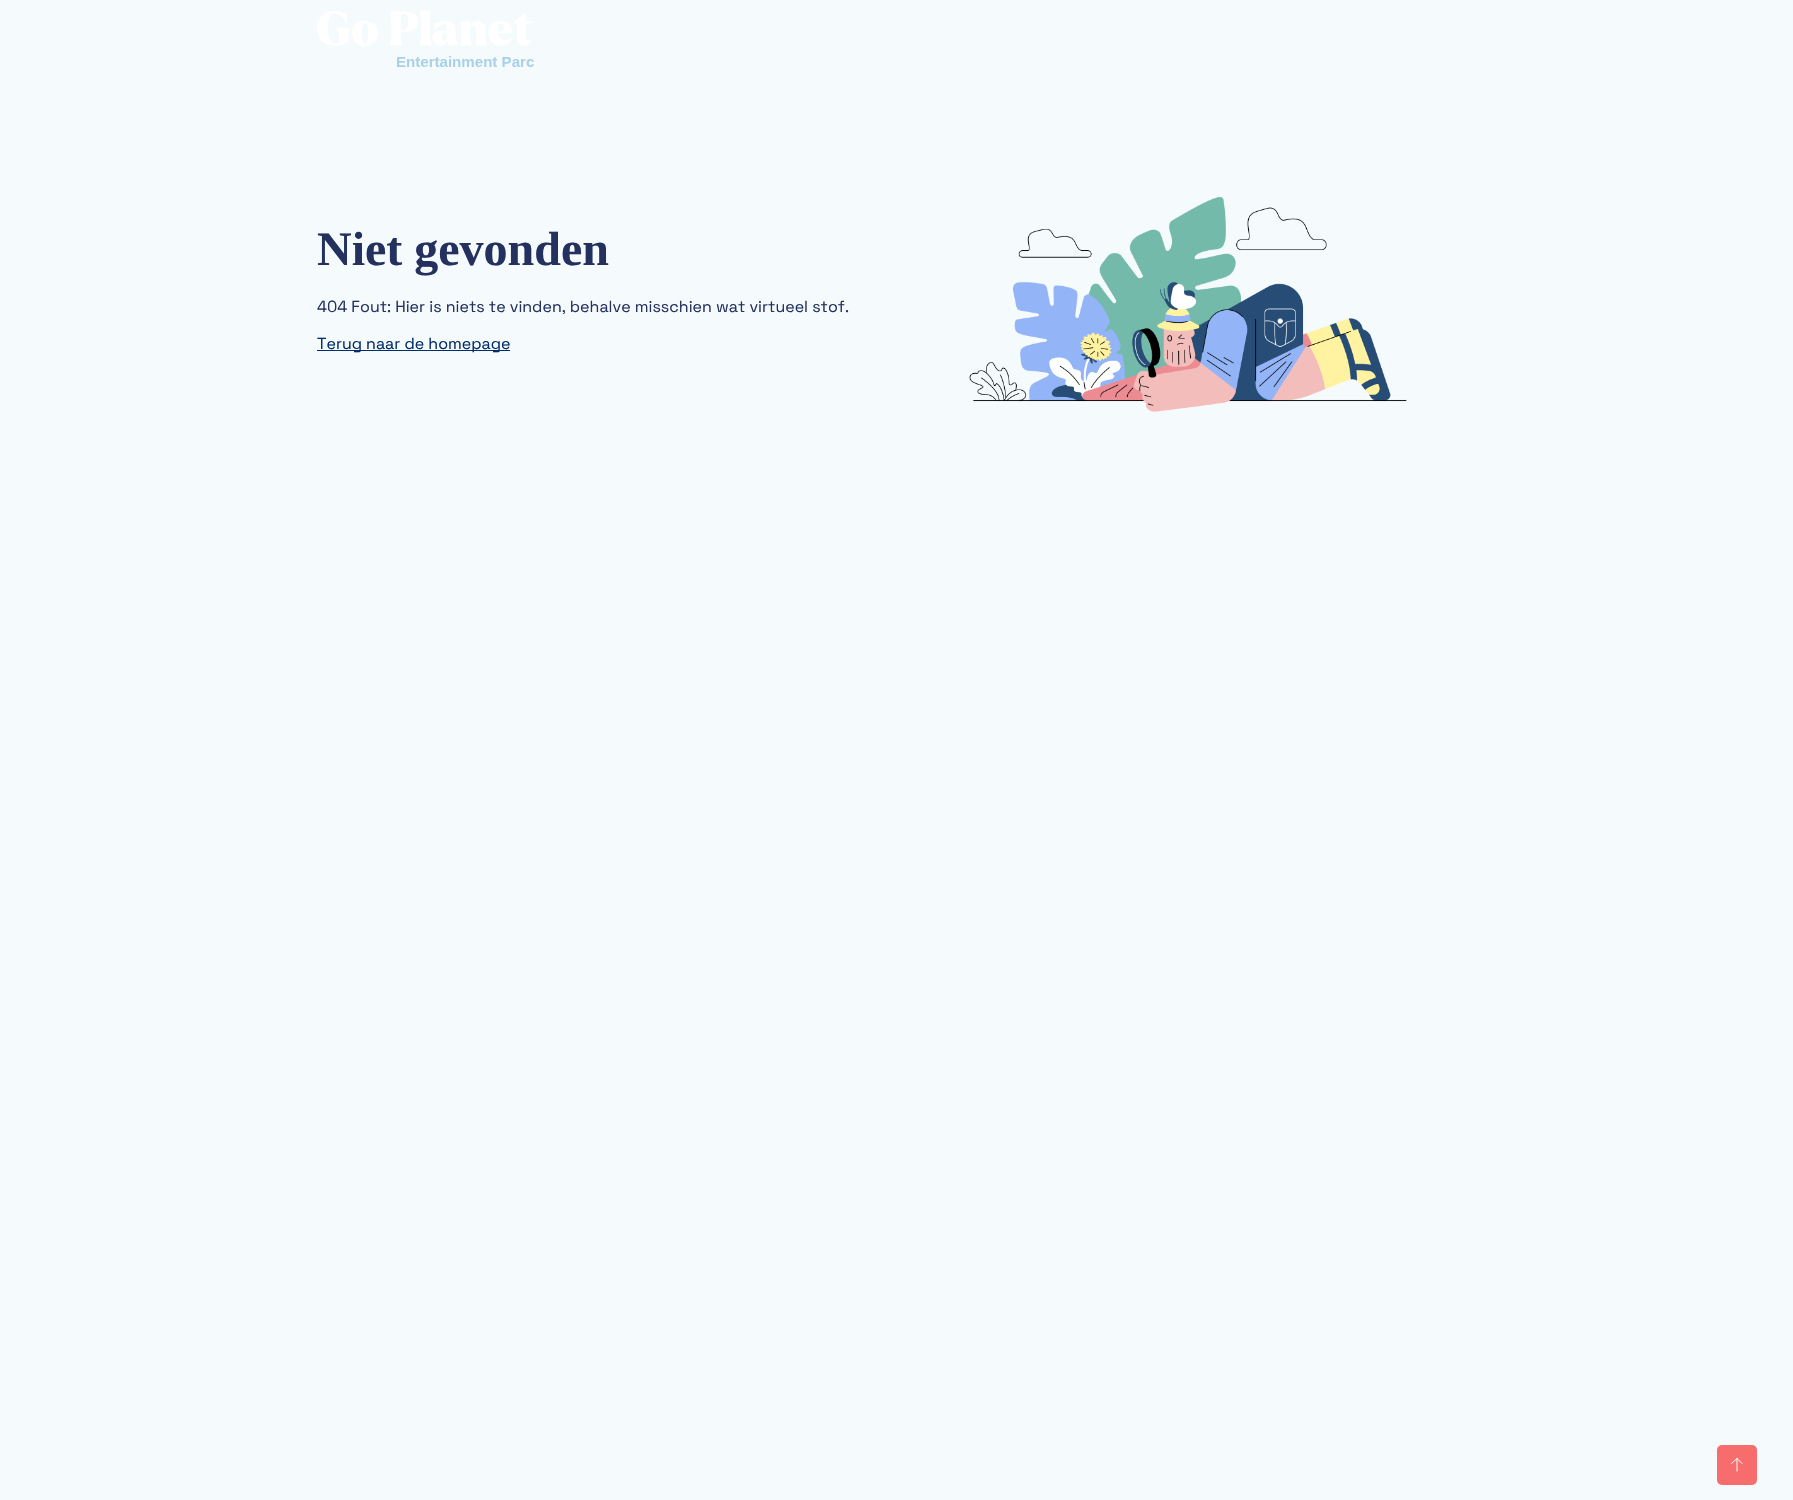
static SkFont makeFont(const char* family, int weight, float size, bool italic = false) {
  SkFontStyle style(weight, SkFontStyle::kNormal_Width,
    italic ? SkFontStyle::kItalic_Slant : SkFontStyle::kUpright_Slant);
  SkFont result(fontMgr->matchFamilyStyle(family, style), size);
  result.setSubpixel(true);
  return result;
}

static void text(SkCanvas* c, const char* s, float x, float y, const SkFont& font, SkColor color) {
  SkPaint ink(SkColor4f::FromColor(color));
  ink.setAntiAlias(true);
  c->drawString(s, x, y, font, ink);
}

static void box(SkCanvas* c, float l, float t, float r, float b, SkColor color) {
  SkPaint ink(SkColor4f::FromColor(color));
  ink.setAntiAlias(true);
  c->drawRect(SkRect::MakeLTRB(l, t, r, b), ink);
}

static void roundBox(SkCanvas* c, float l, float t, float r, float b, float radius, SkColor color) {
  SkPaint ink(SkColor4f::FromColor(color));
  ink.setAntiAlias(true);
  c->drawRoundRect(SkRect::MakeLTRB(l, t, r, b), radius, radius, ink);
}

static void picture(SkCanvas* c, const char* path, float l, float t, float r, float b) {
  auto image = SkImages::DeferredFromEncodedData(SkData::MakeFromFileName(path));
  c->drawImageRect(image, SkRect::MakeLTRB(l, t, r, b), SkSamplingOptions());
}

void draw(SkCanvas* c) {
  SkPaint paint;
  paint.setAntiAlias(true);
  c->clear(0xfff5fbfd);
  picture(c, "img_01.png", 317, 10, 534, 67);
  SkFont face1 = makeFont("Liberation Serif", 700, 48);
  text(c, "Niet gevonden", 317, 265, face1, 0xff24315e);
  SkFont face2 = makeFont("Space Grotesk", 400, 16);
  text(c, "404 Fout: Hier is niets te vinden, behalve misschien wat virtueel stof.", 317, 312, face2, 0xff24315e);
  box(c, 317, 350, 510, 351, 0xff002c69);
  text(c, "Terug naar de homepage", 317, 349, face2, 0xff002c69);
  picture(c, "img_02.png", 969, 196, 1407, 412);
  roundBox(c, 1717, 1445, 1757, 1485, 5, 0xfff76d6d);
  paint.setStyle(SkPaint::kStroke_Style);
  paint.setStrokeWidth(1);
  paint.setStrokeCap(SkPaint::kRound_Cap);
  paint.setColor(0xffffffff);
  c->drawPath(SkPathBuilder().moveTo(1737, 1458.5f).lineTo(1731.5f, 1463.5f).moveTo(1737, 1458.5f).lineTo(1742, 1463.5f).moveTo(1737, 1471).lineTo(1737, 1458.5f).detach(), paint);
}
